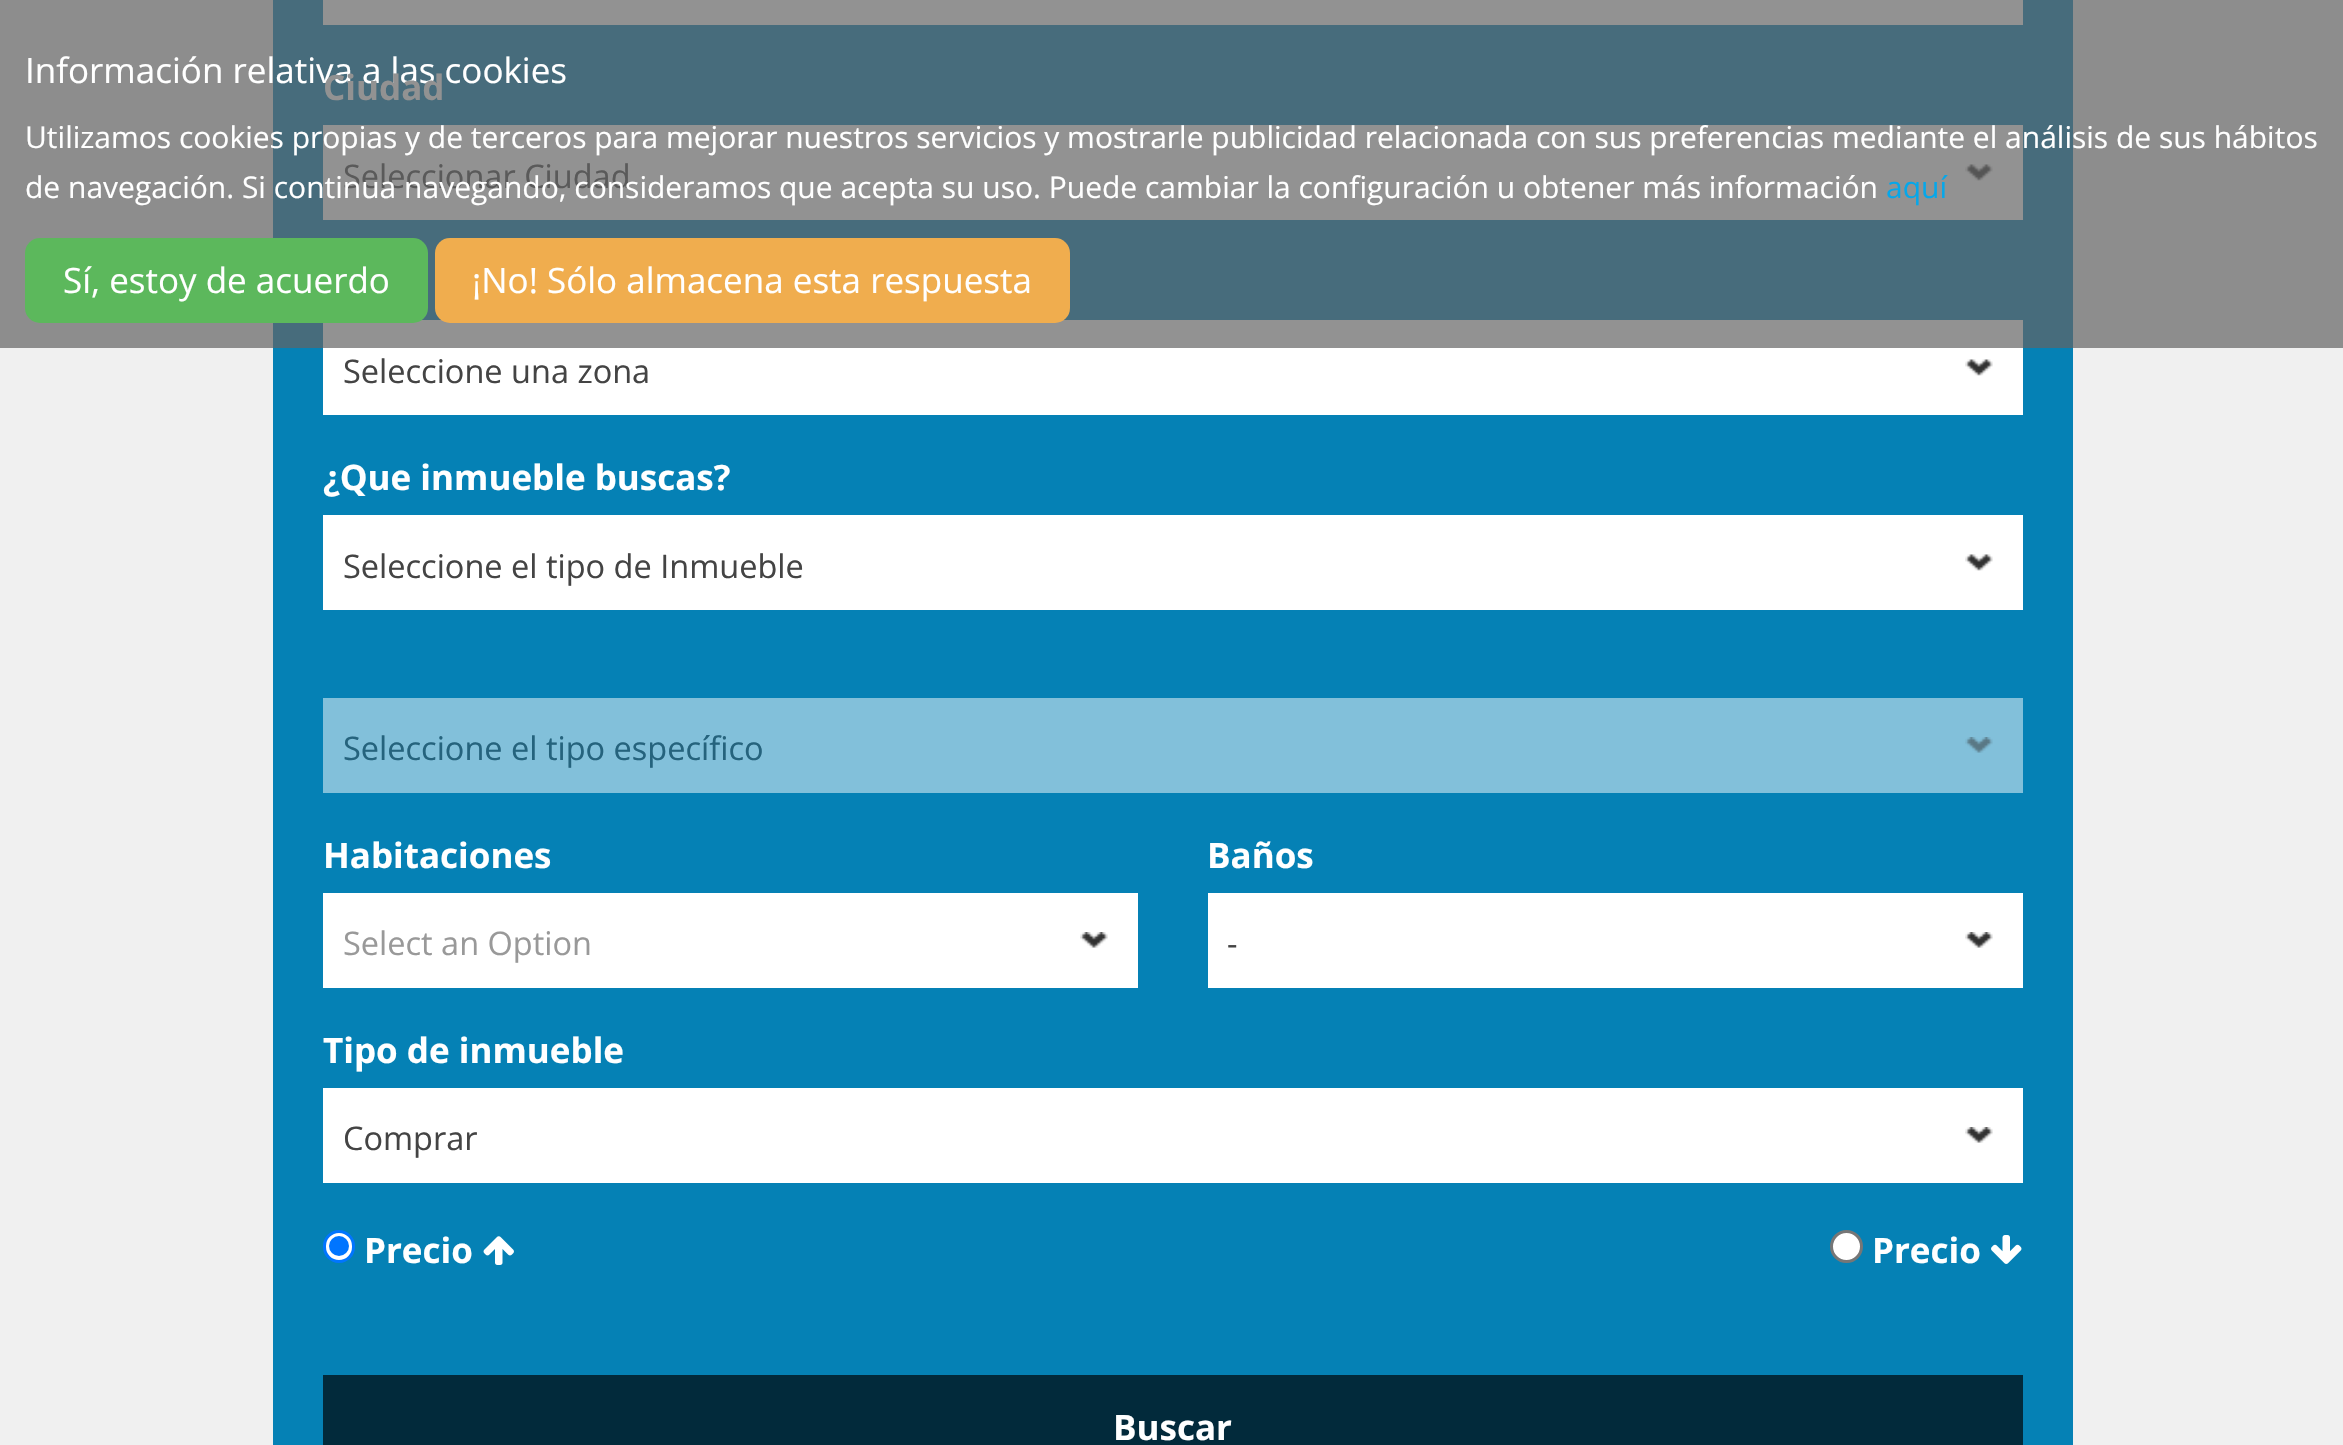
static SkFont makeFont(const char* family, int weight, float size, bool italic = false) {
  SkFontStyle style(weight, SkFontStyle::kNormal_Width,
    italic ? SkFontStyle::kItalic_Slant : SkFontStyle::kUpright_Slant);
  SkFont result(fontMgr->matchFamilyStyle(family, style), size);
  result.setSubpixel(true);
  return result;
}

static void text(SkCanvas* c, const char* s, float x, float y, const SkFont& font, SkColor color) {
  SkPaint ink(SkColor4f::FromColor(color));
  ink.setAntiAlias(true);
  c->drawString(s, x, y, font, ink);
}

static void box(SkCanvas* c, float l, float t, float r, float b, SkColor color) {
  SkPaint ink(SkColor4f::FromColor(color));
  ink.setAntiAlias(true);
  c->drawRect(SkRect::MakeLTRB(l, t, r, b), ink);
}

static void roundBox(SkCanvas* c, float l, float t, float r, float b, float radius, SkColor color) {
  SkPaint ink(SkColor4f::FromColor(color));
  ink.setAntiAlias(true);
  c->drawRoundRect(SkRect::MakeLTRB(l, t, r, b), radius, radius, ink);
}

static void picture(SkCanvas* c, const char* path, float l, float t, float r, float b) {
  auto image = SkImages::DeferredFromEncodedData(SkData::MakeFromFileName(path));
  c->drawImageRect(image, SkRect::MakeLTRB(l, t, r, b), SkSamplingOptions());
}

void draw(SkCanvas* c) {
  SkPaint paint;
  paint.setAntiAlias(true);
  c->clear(0xfff0f0f0);
  box(c, 0, 0, 2343, 348, 0xff8d8d8d);
  box(c, 273, 0, 2073, 348, 0xff476c7c);
  SkFont face1 = makeFont("Open Sans", 400, 35);
  text(c, "Información relativa a las cookies", 25, 83, face1, 0xffffffff);
  box(c, 323, 125, 2023, 220, 0xff929292);
  SkFont face2 = makeFont("Open Sans", 400, 30);
  text(c, "Utilizamos cookies propias y de terceros para mejorar nuestros servicios y mostrarle publicidad relacionada con sus preferencias mediante el análisis de sus hábitos", 25, 148, face2, 0xffffffff);
  SkFont face3 = makeFont("Open Sans", 400, 32.5f);
  text(c, "Seleccionar Ciudad", 343, 188, face3, 0xff5a5a5a);
  text(c, "de navegación. Si continua navegando, consideramos que acepta su uso. Puede cambiar la configuración u obtener más información", 25, 198, face2, 0xffffffff);
  text(c, "aquí", 1886, 198, face2, 0xff06a7ea);
  box(c, 323, 320, 2023, 348, 0xff929292);
  roundBox(c, 25, 238, 428, 323, 15, 0xff5cb85c);
  text(c, "Sí, estoy de acuerdo", 63, 293, face1, 0xffffffff);
  roundBox(c, 435, 238, 1070, 323, 15, 0xfff0ad4e);
  text(c, "¡No! Sólo almacena esta respuesta", 472, 293, face1, 0xffffffff);
  box(c, 273, 348, 2073, 1445, 0xff0581b5);
  box(c, 323, 0, 2023, 25, 0xff929292);
  SkFont face4 = makeFont("Open Sans", 700, 35);
  text(c, "Ciudad", 323, 100, face4, 0xff929292);
  picture(c, "img_01.png", 1965, 164, 1993, 181);
  box(c, 323, 348, 2023, 415, 0xffffffff);
  text(c, "Seleccione una zona", 343, 383, face3, 0xff444444);
  picture(c, "img_02.png", 1965, 359, 1993, 376);
  text(c, "¿Que inmueble buscas?", 323, 490, face4, 0xffffffff);
  box(c, 323, 515, 2023, 610, 0xffffffff);
  text(c, "Seleccione el tipo de Inmueble", 343, 578, face3, 0xff444444);
  picture(c, "img_02.png", 1965, 554, 1993, 571);
  box(c, 323, 698, 2023, 793, 0xff82c0da);
  text(c, "Seleccione el tipo específico", 343, 760, face3, 0xff25637d);
  picture(c, "img_03.png", 1965, 737, 1993, 753);
  text(c, "Habitaciones", 323, 868, face4, 0xffffffff);
  box(c, 323, 893, 1138, 988, 0xffffffff);
  text(c, "Select an Option", 343, 955, face3, 0xff999999);
  picture(c, "img_04.png", 1080, 932, 1108, 948);
  text(c, "Baños", 1207, 868, face4, 0xffffffff);
  box(c, 1208, 893, 2023, 988, 0xffffffff);
  c->save();
  c->clipRect(SkRect::MakeLTRB(1228, 893, 1958, 988));
  text(c, "-", 1227, 955, face3, 0xff444444);
  c->restore();
  picture(c, "img_05.png", 1965, 932, 1993, 948);
  text(c, "Tipo de inmueble", 323, 1063, face4, 0xffffffff);
  box(c, 323, 1088, 2023, 1183, 0xffffffff);
  text(c, "Comprar", 343, 1150, face3, 0xff444444);
  picture(c, "img_05.png", 1965, 1127, 1993, 1143);
  paint.setColor(0xffffffff);
  c->drawRoundRect(SkRect::MakeLTRB(324.5f, 1231.5f, 353.5f, 1261.5f), 14.5f, 14.5f, paint);
  paint.setStyle(SkPaint::kStroke_Style);
  paint.setStrokeWidth(3);
  paint.setColor(0xff0075ff);
  c->drawRoundRect(SkRect::MakeLTRB(324.5f, 1231.5f, 353.5f, 1261.5f), 14.5f, 14.5f, paint);
  paint.setStyle(SkPaint::kFill_Style);
  c->drawCircle(339, 1246, 10, paint);
  text(c, "Precio", 364, 1263, face4, 0xffffffff);
  picture(c, "img_06.png", 483, 1236, 514, 1265);
  paint.setColor(0xffffffff);
  c->drawCircle(1846.5f, 1246.5f, 15, paint);
  paint.setStyle(SkPaint::kStroke_Style);
  paint.setColor(0xff767676);
  c->drawCircle(1846.5f, 1246.5f, 15, paint);
  text(c, "Precio", 1872, 1263, face4, 0xffffffff);
  picture(c, "img_07.png", 1991, 1235, 2022, 1264);
  box(c, 323, 1375, 2023, 1445, 0xff022a3b);
  text(c, "Buscar", 1113, 1440, face4, 0xffffffff);
}
